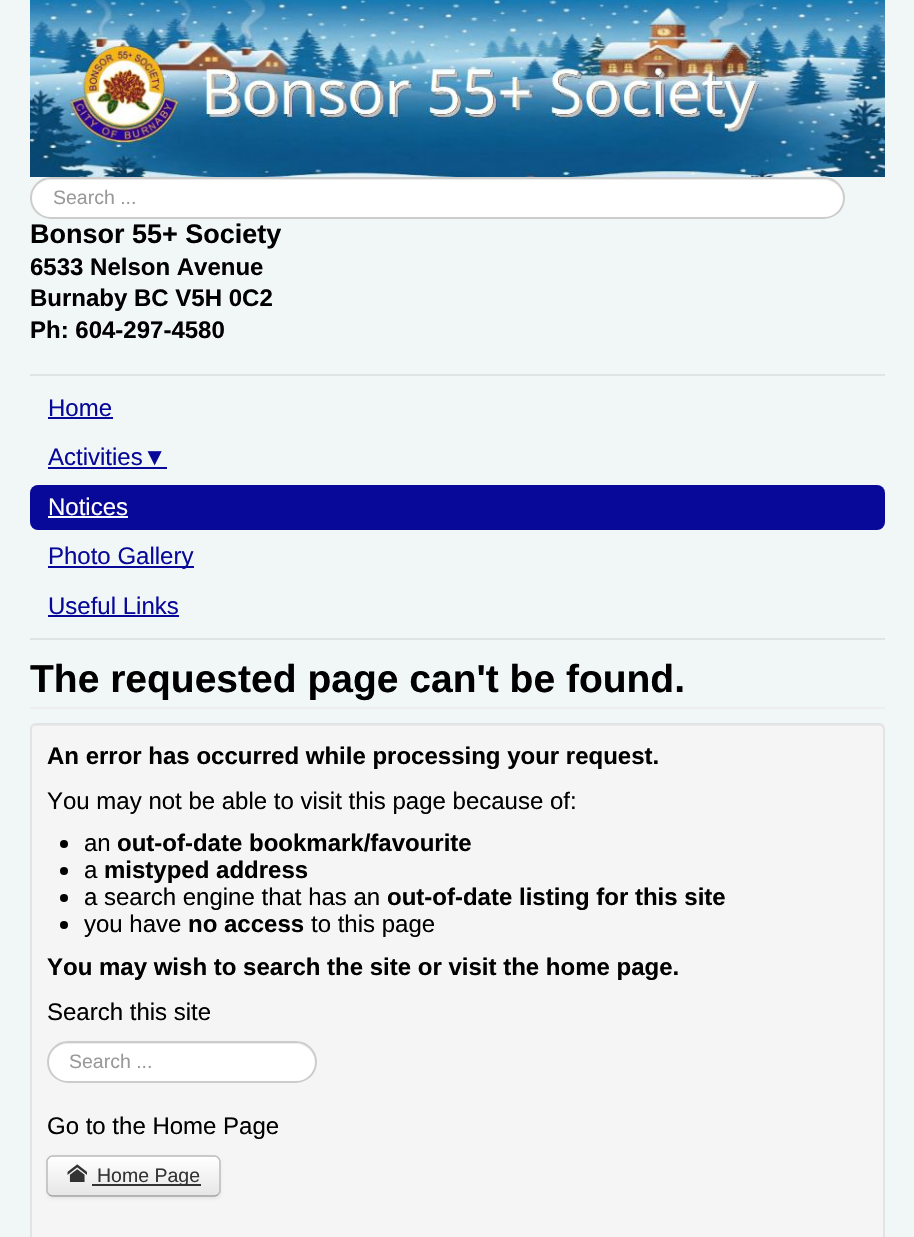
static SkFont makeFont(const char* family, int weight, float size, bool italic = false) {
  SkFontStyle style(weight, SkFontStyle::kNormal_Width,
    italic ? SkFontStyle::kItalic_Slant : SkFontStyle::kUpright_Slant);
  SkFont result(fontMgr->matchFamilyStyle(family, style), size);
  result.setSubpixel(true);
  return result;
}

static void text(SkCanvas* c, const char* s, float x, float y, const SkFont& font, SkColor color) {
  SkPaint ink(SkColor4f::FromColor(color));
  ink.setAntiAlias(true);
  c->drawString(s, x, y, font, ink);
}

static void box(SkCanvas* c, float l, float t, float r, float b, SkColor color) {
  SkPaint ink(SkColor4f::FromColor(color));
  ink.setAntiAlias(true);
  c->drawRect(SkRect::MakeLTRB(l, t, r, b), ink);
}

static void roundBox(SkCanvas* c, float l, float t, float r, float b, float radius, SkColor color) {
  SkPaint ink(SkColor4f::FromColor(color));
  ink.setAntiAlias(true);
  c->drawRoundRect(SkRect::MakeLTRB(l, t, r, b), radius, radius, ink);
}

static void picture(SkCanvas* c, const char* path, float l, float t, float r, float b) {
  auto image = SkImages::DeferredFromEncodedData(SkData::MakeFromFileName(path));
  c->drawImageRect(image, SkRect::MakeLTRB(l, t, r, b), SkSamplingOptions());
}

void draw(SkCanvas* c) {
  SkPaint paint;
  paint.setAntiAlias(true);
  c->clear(0xfff1f6f7);
  picture(c, "img_01.png", 30, 0, 885, 177);
  roundBox(c, 30, 177, 845, 219, 21, 0xffffffff);
  paint.setColor(0xffececec);
  c->drawPath(SkPathBuilder().moveTo(51, 180).lineTo(824, 180).cubicTo(834, 180, 843, 189, 843, 199).cubicTo(843, 188, 834, 179, 824, 179).lineTo(52, 179).cubicTo(41, 179, 32, 188, 32, 199).cubicTo(32, 189, 40, 180, 51, 180).close().detach(), paint);
  paint.setStyle(SkPaint::kStroke_Style);
  paint.setStrokeWidth(2);
  paint.setColor(0xffcccccc);
  c->drawRoundRect(SkRect::MakeLTRB(31, 178, 844, 218), 20, 20, paint);
  SkFont face1 = makeFont("Liberation Sans", 400, 19.5f);
  text(c, "Search ...", 53, 204, face1, 0xff999999);
  SkFont face2 = makeFont("Liberation Sans", 700, 27);
  text(c, "Bonsor 55+ Society", 30, 243, face2, 0xff000000);
  SkFont face3 = makeFont("Liberation Sans", 700, 24);
  text(c, "6533 Nelson Avenue", 30, 275, face3, 0xff000000);
  text(c, "Burnaby BC V5H 0C2", 30, 306, face3, 0xff000000);
  text(c, "Ph: 604-297-4580", 30, 338, face3, 0xff000000);
  box(c, 30, 374, 885, 376, 0xffdfe4e4);
  box(c, 30, 638, 885, 640, 0xffdfe4e4);
  SkFont face4 = makeFont("Liberation Sans", 400, 24);
  text(c, "Home", 48, 416, face4, 0xff090999);
  box(c, 48, 417, 113, 419, 0xff090999);
  text(c, "Activities▼", 48, 465, face4, 0xff090999);
  box(c, 48, 467, 167, 469, 0xff090999);
  roundBox(c, 30, 485, 885, 530, 8, 0xff090999);
  text(c, "Notices", 48, 515, face4, 0xffffffff);
  box(c, 48, 516, 128, 518, 0xffffffff);
  box(c, 48, 566, 194, 568, 0xff090999);
  text(c, "Photo Gallery", 48, 564, face4, 0xff090999);
  text(c, "Useful Links", 48, 614, face4, 0xff090999);
  box(c, 48, 615, 179, 617, 0xff090999);
  box(c, 30, 707, 885, 709, 0xffeeeeee);
  SkFont face5 = makeFont("Liberation Sans", 700, 39);
  text(c, "The requested page can't be found.", 30, 692, face5, 0xff000000);
  roundBox(c, 30, 723, 885, 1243, 6, 0xfff5f5f5);
  paint.setStyle(SkPaint::kFill_Style);
  paint.setColor(0xffe9e9e9);
  c->drawPath(SkPathBuilder().moveTo(36, 726).lineTo(879, 726).cubicTo(881, 726, 884, 728, 884, 730).cubicTo(884, 727, 882, 725, 879, 725).lineTo(37, 725).cubicTo(34, 725, 32, 727, 32, 730).cubicTo(32, 728, 34, 726, 36, 726).close().detach(), paint);
  paint.setStyle(SkPaint::kStroke_Style);
  paint.setColor(0xffe3e3e3);
  c->drawRoundRect(SkRect::MakeLTRB(31, 724, 884, 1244), 5, 5, paint);
  text(c, "An error has occurred while processing your request.", 47, 764, face3, 0xff000000);
  text(c, "You may not be able to visit this page because of:", 47, 809, face4, 0xff000000);
  paint.setStyle(SkPaint::kFill_Style);
  paint.setColor(0xff000000);
  c->drawCircle(64, 844, 4, paint);
  text(c, "an", 84, 851, face4, 0xff000000);
  text(c, "out-of-date bookmark/favourite", 117, 851, face3, 0xff000000);
  c->drawCircle(64, 871, 4, paint);
  text(c, "a", 84, 878, face4, 0xff000000);
  text(c, "mistyped address", 104, 878, face3, 0xff000000);
  c->drawCircle(64, 898, 4, paint);
  text(c, "a search engine that has an", 84, 905, face4, 0xff000000);
  text(c, "out-of-date listing for this site", 387, 905, face3, 0xff000000);
  c->drawCircle(64, 925, 4, paint);
  text(c, "you have", 84, 932, face4, 0xff000000);
  text(c, "no access", 188, 932, face3, 0xff000000);
  text(c, "to this page", 311, 932, face4, 0xff000000);
  text(c, "You may wish to search the site or visit the home page.", 47, 975, face3, 0xff000000);
  text(c, "Search this site", 47, 1020, face4, 0xff000000);
  roundBox(c, 47, 1041, 317, 1083, 21, 0xffffffff);
  paint.setColor(0xffececec);
  c->drawPath(SkPathBuilder().moveTo(68, 1044).lineTo(296, 1044).cubicTo(306, 1044, 315, 1053, 315, 1063).cubicTo(316, 1034, 271, 1043, 258, 1043).lineTo(106, 1043).cubicTo(92, 1043, 47, 1034, 48, 1063).cubicTo(48, 1053, 57, 1044, 68, 1044).close().detach(), paint);
  paint.setStyle(SkPaint::kStroke_Style);
  paint.setColor(0xffcccccc);
  c->drawRoundRect(SkRect::MakeLTRB(48, 1042, 316, 1082), 20, 20, paint);
  text(c, "Search ...", 69, 1068, face1, 0xff999999);
  text(c, "Go to the Home Page", 47, 1134, face4, 0xff000000);
  paint.setStyle(SkPaint::kFill_Style);
  paint.setColor(0x0d000000);
  paint.setMaskFilter(SkMaskFilter::MakeBlur(kNormal_SkBlurStyle, 1.5f));
  c->drawRoundRect(SkRect::MakeLTRB(47, 1157, 221, 1199), 6, 6, paint);
  paint.setMaskFilter(nullptr);
  roundBox(c, 47, 1155, 221, 1197, 6, 0xfff5f5f5);
  c->save();
  c->clipPath(SkPathBuilder().moveTo(53, 1155).lineTo(215, 1155).cubicTo(218.5f, 1155, 221, 1157.5f, 221, 1161).lineTo(221, 1191).cubicTo(221, 1194.5f, 218.5f, 1197, 215, 1197).lineTo(53, 1197).cubicTo(49.5f, 1197, 47, 1194.5f, 47, 1191).lineTo(47, 1161).cubicTo(47, 1157.5f, 49.5f, 1155, 53, 1155).close().detach(), true);
  {
    const SkColor colors[] = {0xffffffff, 0xffe6e6e6};
    const float stops[] = {0, 1};
    const SkPoint ends[] = {{134, 1157}, {134, 1196}};
    paint.setShader(SkGradientShader::MakeLinear(ends, colors, stops, 2, SkTileMode::kClamp));
    paint.setAlpha(255);
  }
  c->drawRect(SkRect::MakeLTRB(47, 1157, 221, 1196), paint);
  c->restore();
  paint.setStyle(SkPaint::kStroke_Style);
  paint.setStrokeWidth(1.5f);
  paint.setShader(nullptr);
  paint.setColor(0xffa2a2a2);
  c->drawPath(SkPathBuilder().moveTo(218, 1194.5f).cubicTo(217, 1195.5f, 216, 1196, 214.5f, 1196).lineTo(52.5f, 1196).cubicTo(51, 1196, 50, 1195.5f, 49, 1194.5f).detach(), paint);
  paint.setColor(0xffbbbbbb);
  c->drawPath(SkPathBuilder().moveTo(49, 1194.5f).cubicTo(48, 1193.5f, 47, 1192.5f, 47, 1191).lineTo(47, 1161).cubicTo(47, 1159.5f, 48, 1158.5f, 49, 1157.5f).cubicTo(50, 1156.5f, 51, 1156, 52.5f, 1156).lineTo(214.5f, 1156).cubicTo(216, 1156, 217, 1156.5f, 218, 1157.5f).cubicTo(219, 1158.5f, 220, 1159.5f, 220, 1161).lineTo(220, 1191).cubicTo(220, 1192.5f, 219, 1193.5f, 218, 1194.5f).detach(), paint);
  picture(c, "img_02.png", 67, 1164, 87, 1182);
  box(c, 92, 1184, 201, 1186, 0xff333333);
  text(c, "Home Page", 97, 1182, face1, 0xff333333);
}
